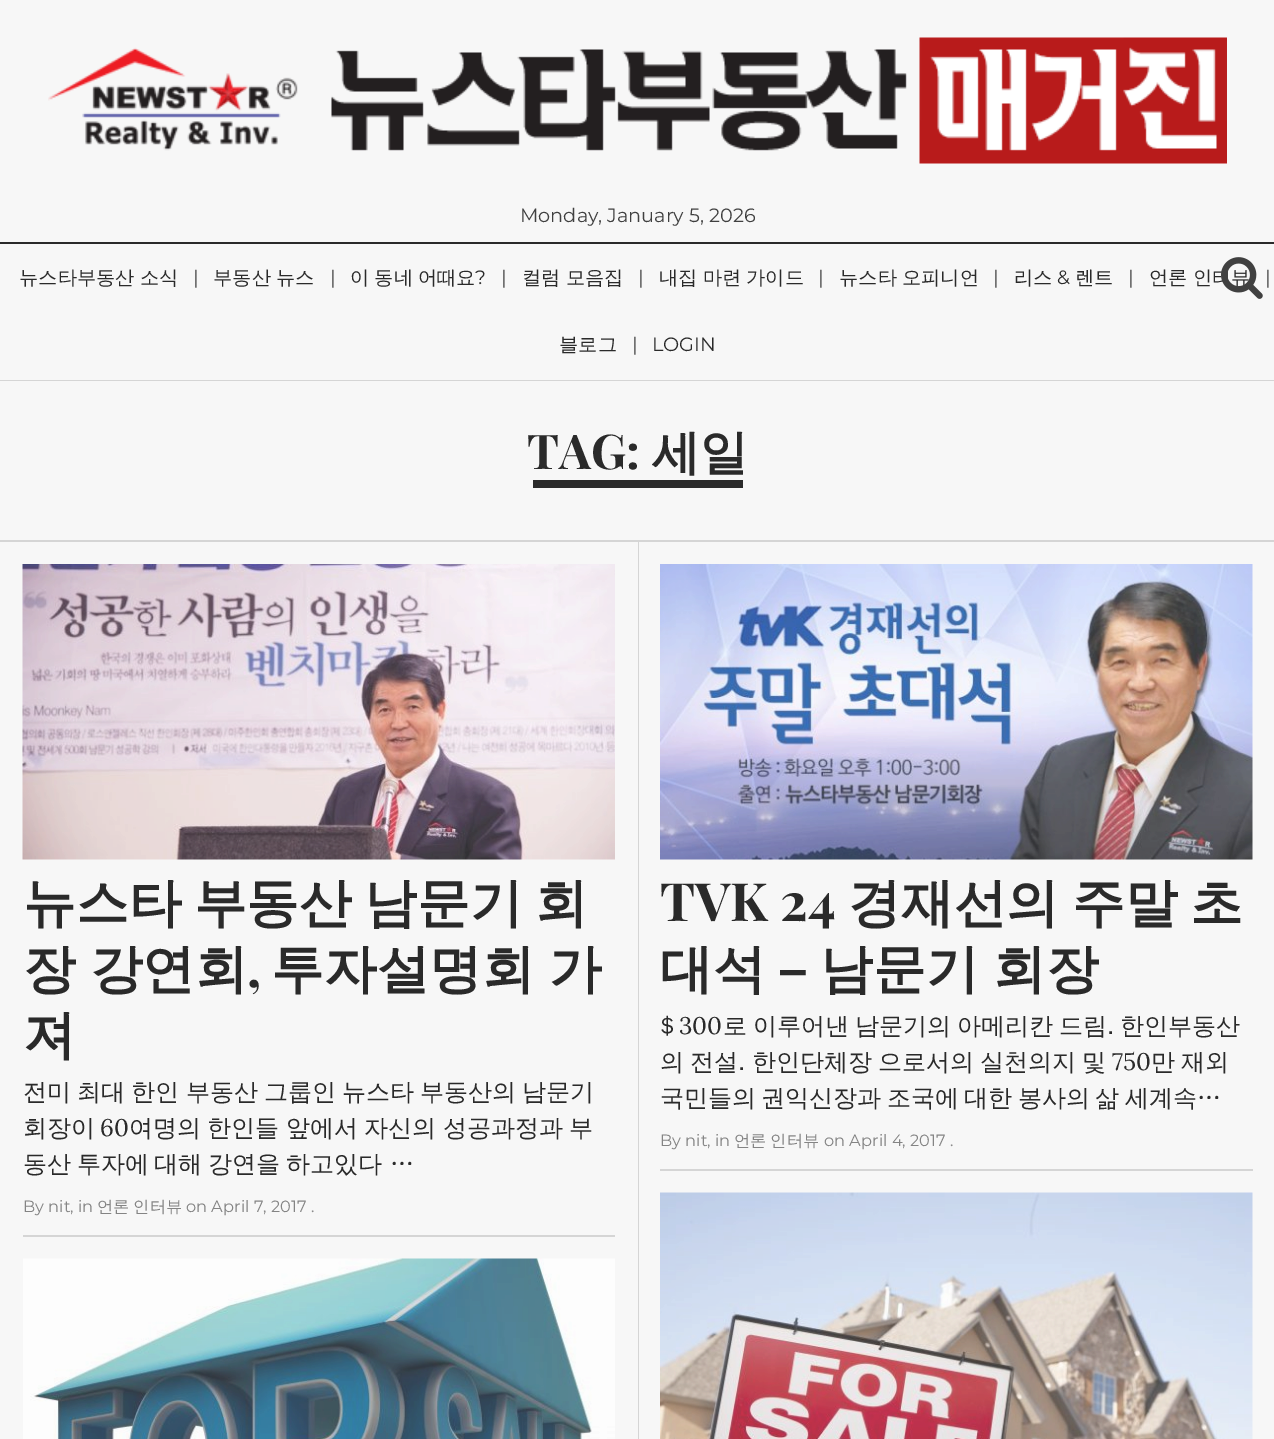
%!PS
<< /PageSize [1274 1439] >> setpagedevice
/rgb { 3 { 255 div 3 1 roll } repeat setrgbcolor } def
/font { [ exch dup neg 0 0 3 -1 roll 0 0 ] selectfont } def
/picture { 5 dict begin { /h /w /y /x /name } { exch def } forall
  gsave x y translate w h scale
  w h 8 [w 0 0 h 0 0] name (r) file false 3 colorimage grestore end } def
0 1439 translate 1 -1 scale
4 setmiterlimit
247 247 247 rgb
0 0 1274 1439 rectfill
(img/1.rgb) 48 37 1179 127 picture
[
  [0 242 1274 2 42 42 42]
  [0 380 1274 1 213 213 213]
  [0 540 1274 2 213 213 213]
  [533 480 210 8 42 42 42]
  [638 542 1 897 213 213 213]
] { aload pop rgb rectfill } forall
(img/3.rgb) 22 564 593 296 picture
23 1235 592 2 rectfill
(img/4.rgb) 660 564 593 296 picture
660 1169 593 2 rectfill
(img/5.rgb) 23 1258 592 181 picture
(img/6.rgb) 660 1192 593 247 picture
/Montserrat-Thin 19.25 font
64 64 64 rgb
520 222 moveto (Monday, January 5, 2026) show
/WenQuanYiZenHei-Medium 19.25 font
42 42 42 rgb
19 284 moveto -0.75 0 32 (뉴스타부동산 소식) widthshow
/Montserrat-Thin 19.25 font
64 64 64 rgb
193 284 moveto (|) show
/WenQuanYiZenHei-Medium 19.25 font
42 42 42 rgb
213 284 moveto -0.75 0 32 (부동산 뉴스) widthshow
/Montserrat-Thin 19.25 font
64 64 64 rgb
330 284 moveto (|) show
/WenQuanYiZenHei-Medium 19.25 font
42 42 42 rgb
350 284 moveto -0.75 0 32 (이 동네 어때요) widthshow
/Montserrat-Thin 19.25 font
475 284 moveto (?) show
64 64 64 rgb
501 284 moveto (|) show
/WenQuanYiZenHei-Medium 19.25 font
42 42 42 rgb
522 284 moveto -0.75 0 32 (컬럼 모음집) widthshow
/Montserrat-Thin 19.25 font
64 64 64 rgb
638 284 moveto (|) show
/WenQuanYiZenHei-Medium 19.25 font
42 42 42 rgb
659 284 moveto -0.75 0 32 (내집 마련 가이드) widthshow
/Montserrat-Thin 19.25 font
64 64 64 rgb
818 284 moveto (|) show
/WenQuanYiZenHei-Medium 19.25 font
42 42 42 rgb
839 284 moveto -0.75 0 32 (뉴스타 오피니언) widthshow
/Montserrat-Thin 19.25 font
64 64 64 rgb
993 284 moveto (|) show
/WenQuanYiZenHei-Medium 19.25 font
42 42 42 rgb
1014 284 moveto (리스) show
/Montserrat-Thin 19.25 font
1057 284 moveto (&) show
/WenQuanYiZenHei-Medium 19.25 font
1075 284 moveto (렌트) show
/Montserrat-Thin 19.25 font
64 64 64 rgb
1128 284 moveto (|) show
/WenQuanYiZenHei-Medium 19.25 font
42 42 42 rgb
1149 284 moveto -0.75 0 32 (언론 인터뷰) widthshow
(img/2.rgb) 1221 257 42 42 picture
/Montserrat-Thin 19.25 font
64 64 64 rgb
1265 284 moveto (|) show
/WenQuanYiZenHei-Medium 19.25 font
42 42 42 rgb
559 351 moveto (블로그) show
/Montserrat-Thin 19.25 font
64 64 64 rgb
632 351 moveto (|) show
42 42 42 rgb
652 351 moveto (LOGIN) show
/PlayfairDisplay-Bold 48 font
527 469 moveto (TAG:) show
/WenQuanYiZenHei-Bold 48 font
652 469 moveto (세일) show
/WenQuanYiZenHei-Bold 52.75 font
23 921 moveto -3.5 0 32 (뉴스타 부동산 남문기 회) widthshow
23 987 moveto -2 0 32 (장 강연회) widthshow
/PlayfairDisplay-Bold 52.75 font
247 987 moveto (,) show
/WenQuanYiZenHei-Bold 52.75 font
271 987 moveto -2 0 32 (투자설명회 가) widthshow
23 1053 moveto (져) show
/WenQuanYiZenHei-Medium 24 font
23 1100 moveto -1 0 32 (전미 최대 한인 부동산 그룹인 뉴스타 부동산의 남문기) widthshow
23 1136 moveto (회장이) show
/Lora-Regular 24 font
100 1136 moveto (60) show
/WenQuanYiZenHei-Medium 24 font
129 1136 moveto -0.75 0 32 (여명의 한인들 앞에서 자신의 성공과정과 부) widthshow
23 1172 moveto -1.5 0 32 (동산 투자에 대해 강연을 하고있다) widthshow
390 1172 moveto (…) show
/Montserrat-Thin 16.25 font
132 132 132 rgb
23 1212 moveto (By nit, in) show
/WenQuanYiZenHei-Medium 16.25 font
97 1212 moveto -1 0 32 (언론 인터뷰) widthshow
/Montserrat-Thin 16.25 font
186 1212 moveto (on April 7, 2017 .) show
/PlayfairDisplay-Bold 52.75 font
42 42 42 rgb
660 921 moveto (TVK 24) show
/WenQuanYiZenHei-Bold 52.75 font
[
  [(경재선의) 848 921]
  [(주말) 1072 921]
  [(초) 1190 921]
  [(대석) 660 987]
] { aload pop moveto show } forall
/PlayfairDisplay-Bold 52.75 font
777 987 moveto (–) show
/WenQuanYiZenHei-Bold 52.75 font
820 987 moveto -1.25 0 32 (남문기 회장) widthshow
/WenQuanYiZenHei-Medium 24 font
660 1034 moveto ($) show
/Lora-Regular 24 font
679 1034 moveto (300) show
/WenQuanYiZenHei-Medium 24 font
723 1034 moveto -1.25 0 32 (로 이루어낸 남문기의 아메리칸 드림. 한인부동산) widthshow
660 1070 moveto -1 0 32 (의 전설. 한인단체장 으로서의 실천의지 및) widthshow
/Lora-Regular 24 font
1112 1070 moveto (750) show
/WenQuanYiZenHei-Medium 24 font
1151 1070 moveto -1 0 32 (만 재외) widthshow
660 1106 moveto -1.75 0 32 (국민들의 권익신장과 조국에 대한 봉사의 삶 세계속…) widthshow
/Montserrat-Thin 16.25 font
132 132 132 rgb
660 1146 moveto (By nit, in) show
/WenQuanYiZenHei-Medium 16.25 font
734 1146 moveto -1 0 32 (언론 인터뷰) widthshow
/Montserrat-Thin 16.25 font
824 1146 moveto (on April 4, 2017 .) show
showpage
